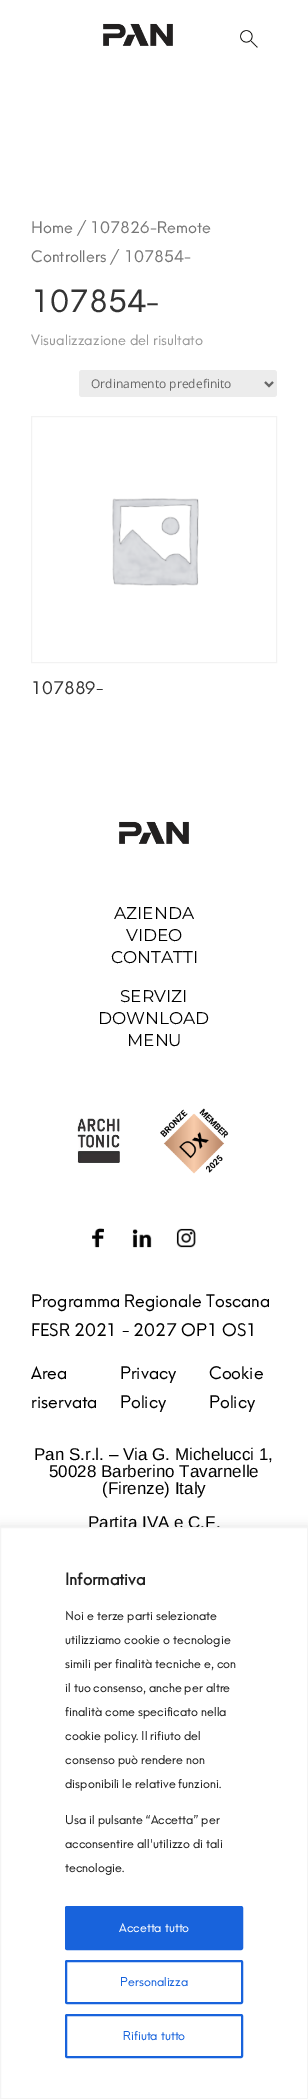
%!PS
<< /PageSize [308 2099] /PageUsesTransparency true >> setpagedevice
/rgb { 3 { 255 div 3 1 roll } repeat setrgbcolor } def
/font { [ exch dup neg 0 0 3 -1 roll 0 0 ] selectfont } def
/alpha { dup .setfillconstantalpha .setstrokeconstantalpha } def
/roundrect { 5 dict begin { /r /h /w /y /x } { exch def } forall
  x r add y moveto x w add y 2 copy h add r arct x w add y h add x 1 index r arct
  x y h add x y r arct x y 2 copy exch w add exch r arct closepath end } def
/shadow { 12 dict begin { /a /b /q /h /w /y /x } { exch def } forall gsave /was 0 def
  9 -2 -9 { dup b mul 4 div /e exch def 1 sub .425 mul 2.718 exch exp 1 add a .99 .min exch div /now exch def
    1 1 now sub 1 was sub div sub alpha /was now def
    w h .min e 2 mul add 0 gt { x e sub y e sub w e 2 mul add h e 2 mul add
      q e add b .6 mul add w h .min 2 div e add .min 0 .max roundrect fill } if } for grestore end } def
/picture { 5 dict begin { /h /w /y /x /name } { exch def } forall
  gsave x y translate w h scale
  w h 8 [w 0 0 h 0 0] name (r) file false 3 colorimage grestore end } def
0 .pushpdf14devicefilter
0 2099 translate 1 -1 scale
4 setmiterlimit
255 255 255 rgb
0 0 308 2099 rectfill
(img/1.rgb) 103 23 70 23 picture
(img/2.rgb) 240 30 18 18 picture
236 236 236 rgb
79 370 198 27 3 roundrect fill
102 102 102 rgb
2 setlinewidth
265 382 moveto 269 386 lineto 273 382 lineto stroke
242 242 242 rgb
1 setlinewidth
31.5 416.5 245 246 rectstroke
(img/3.rgb) 112 498 87 88 picture
(img/4.rgb) 119 821 70 23 picture
(img/5.rgb) 77 1118 43 45 picture
(img/6.rgb) 160 1108 69 66 picture
(img/7.rgb) 92 1228 12 20 picture
(img/8.rgb) 132 1229 20 19 picture
(img/9.rgb) 176 1228 20 20 picture
172 171 171 rgb
0 1526 308 572 0 5 0.3 shadow
/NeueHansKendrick-Regular 15.6 font
118 118 118 rgb
31 233 moveto (Home / 107826-Remote) show
31 262 moveto (Controllers / 107854-) show
/NeueHansKendrick-Regular 30 font
51 51 51 rgb
31 312 moveto (107854-) show
/NeueHansKendrick-Regular 14 font
153 153 153 rgb
31 345 moveto (Visualizzazione del risultato) show
/OpenSans-Regular 12 font
102 102 102 rgb
91 388 moveto (Ordinamento predefinito) show
/NeueHansKendrick-Regular 17 font
51 51 51 rgb
31 694 moveto (107889-) show
/Montserrat-Regular 17 font
0 0 0 rgb
[
  [(AZIENDA) 114 919]
  [(VIDEO) 126 941]
  [(CONTATTI) 111 963]
  [(SERVIZI) 120 1002]
  [(DOWNLOAD) 98 1024]
  [(MENU) 127 1046]
] { aload pop moveto show } forall
/NeueHansKendrick-Regular 17 font
[
  [(Programma Regionale Toscana) 31 1307]
  [(FESR 2021 - 2027 OP1 OS1) 31 1336]
  [(Area) 31 1379]
  [(riservata) 31 1408]
  [(Privacy) 120 1379]
  [(Policy) 120 1408]
  [(Cookie) 209 1379]
  [(Policy) 209 1408]
] { aload pop moveto show } forall
/LiberationSans-Regular 17 font
[
  [(Pan S.r.l. – Via G. Michelucci 1,) 34 1460]
  [(50028 Barberino Tavarnelle) 49 1477]
  [(\(Firenze\) Italy) 102 1494]
  [(Partita IVA e C.F.) 88 1528]
] { aload pop moveto show } forall
255 255 255 rgb
0.5 1527.5 moveto 307.5 1527.5 lineto 307.5 2098.5 lineto 0.5 2098.5 lineto closepath gsave fill grestore
244 244 244 rgb
stroke
/NeueHansKendrick-Bold 16 font
33 33 33 rgb
65 1585 moveto (Informativa) show
/NeueHansKendrick-Regular 12 font
[
  [(Noi e terze parti selezionate) 65 1620]
  [(utilizziamo cookie o tecnologie) 65 1644]
  [(simili per finalità tecniche e, con) 65 1668]
  [(il tuo consenso, anche per altre) 65 1692]
  [(finalità come specificato nella) 65 1716]
  [(cookie policy) 65 1740]
  [(. Il rifiuto del) 136 1740]
  [(consenso può rendere non) 65 1764]
  [(disponibili le relative funzioni.) 65 1788]
  [(Usa il pulsante “Accetta” per) 65 1824]
  [(acconsentire all'utilizzo di tali) 65 1848]
  [(tecnologie.) 65 1872]
] { aload pop moveto show } forall
24 99 220 rgb
66 1907 176 42 1 roundrect gsave fill grestore
2 setlinewidth
stroke
255 255 255 rgb
119 1932 moveto (Accetta tutto) show
24 99 220 rgb
66 1961 176 42 1 roundrect stroke
120 1986 moveto (Personalizza) show
66 2015 176 42 1 roundrect stroke
123 2040 moveto (Rifiuta tutto) show
.poppdf14devicefilter showpage
